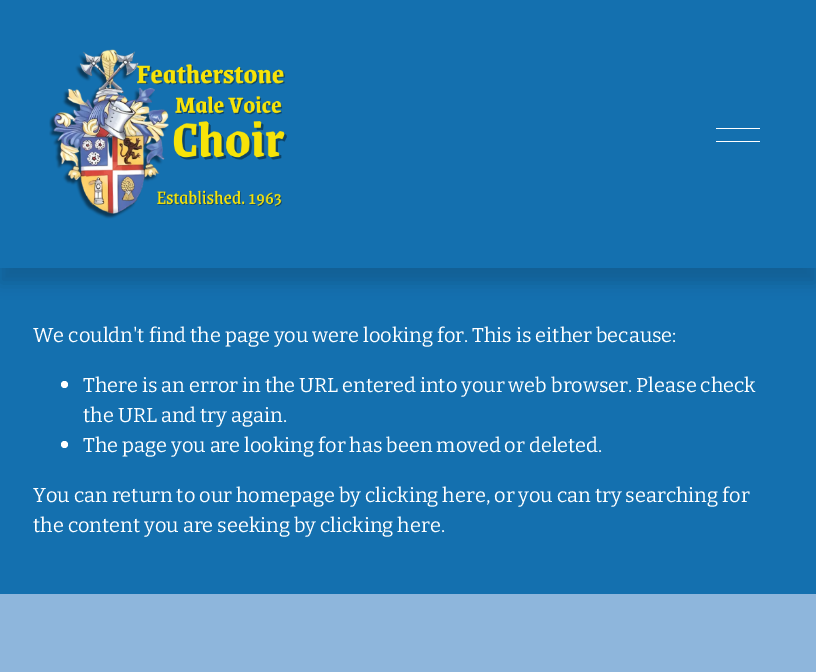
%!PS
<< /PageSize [816 672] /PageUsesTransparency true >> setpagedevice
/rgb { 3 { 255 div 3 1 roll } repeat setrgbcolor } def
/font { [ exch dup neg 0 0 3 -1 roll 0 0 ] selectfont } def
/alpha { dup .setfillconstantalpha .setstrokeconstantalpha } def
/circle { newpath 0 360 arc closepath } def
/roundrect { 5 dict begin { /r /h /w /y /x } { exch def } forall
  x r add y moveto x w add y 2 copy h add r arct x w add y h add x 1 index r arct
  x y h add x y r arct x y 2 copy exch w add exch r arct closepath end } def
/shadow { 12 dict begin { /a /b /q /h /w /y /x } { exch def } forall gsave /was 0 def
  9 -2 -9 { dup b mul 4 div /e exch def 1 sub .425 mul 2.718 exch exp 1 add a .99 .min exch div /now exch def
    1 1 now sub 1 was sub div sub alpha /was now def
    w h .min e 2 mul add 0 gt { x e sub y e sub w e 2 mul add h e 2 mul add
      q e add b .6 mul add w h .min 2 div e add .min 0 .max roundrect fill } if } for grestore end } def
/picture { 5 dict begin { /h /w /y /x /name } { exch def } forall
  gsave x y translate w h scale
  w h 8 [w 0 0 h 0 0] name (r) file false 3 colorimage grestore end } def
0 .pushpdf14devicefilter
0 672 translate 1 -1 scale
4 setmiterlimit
20 112 175 rgb
0 0 816 672 rectfill
gsave
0 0 moveto 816 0 lineto 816 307 lineto 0 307 lineto closepath 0 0 moveto 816 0 lineto 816 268 lineto 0 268 lineto closepath eoclip newpath
17 95 149 rgb
0 15 816 268 0 7.5 1 shadow
grestore
(img/1.rgb) 49 49 238 170 picture
255 255 255 rgb
716 128 44 1 rectfill
716 141 44 1 rectfill
64.5 384.5 3.5 circle fill
64.5 444.5 3.5 circle fill
142 182 220 rgb
0 594 816 78 rectfill
/Bitter-Regular 20 font
255 255 255 rgb
[
  [(We couldn't find the page you were looking for. This is either because:) 33 342]
  [(There is an error in the URL entered into your web browser. Please check) 83 392]
  [(the URL and try again.) 83 422]
  [(The page you are looking for has been moved or deleted.) 83 452]
  [(You can return to our homepage by clicking here, or you can try searching for) 33 502]
  [(the content you are seeking by clicking here.) 33 532]
] { aload pop moveto show } forall
.poppdf14devicefilter showpage
